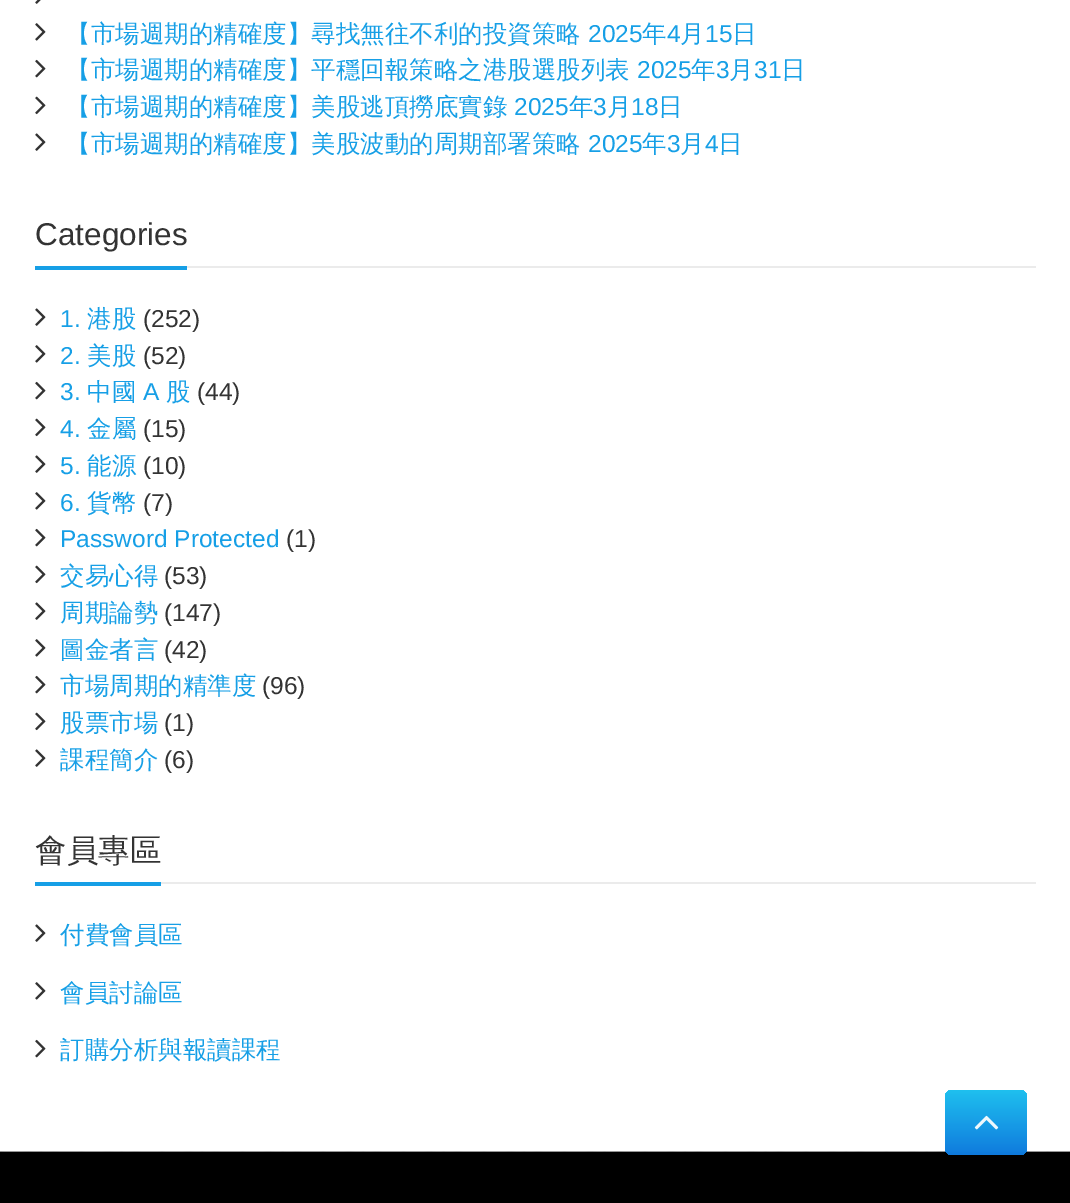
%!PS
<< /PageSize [1070 1203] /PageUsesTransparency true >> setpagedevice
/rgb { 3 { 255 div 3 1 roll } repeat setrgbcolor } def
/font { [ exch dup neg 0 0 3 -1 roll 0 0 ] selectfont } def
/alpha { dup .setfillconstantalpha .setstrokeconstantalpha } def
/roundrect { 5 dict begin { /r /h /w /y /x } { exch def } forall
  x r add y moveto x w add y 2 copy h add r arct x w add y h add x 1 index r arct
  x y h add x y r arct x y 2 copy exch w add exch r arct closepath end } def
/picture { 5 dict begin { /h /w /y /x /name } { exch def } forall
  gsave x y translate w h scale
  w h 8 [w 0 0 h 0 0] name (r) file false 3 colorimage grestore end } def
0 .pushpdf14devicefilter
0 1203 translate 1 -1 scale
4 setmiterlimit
255 255 255 rgb
0 0 1070 1203 rectfill
(img/1.rgb) 35 0 6 4 picture
(img/2.rgb) 35 23 11 18 picture
(img/3.rgb) 35 59 11 19 picture
(img/4.rgb) 35 96 11 19 picture
(img/5.rgb) 35 133 11 18 picture
235 235 235 rgb
187 266 849 2 rectfill
22 159 230 rgb
35 266 152 4 rectfill
(img/5.rgb) 35 308 11 18 picture
(img/6.rgb) 35 345 11 18 picture
(img/3.rgb) 35 381 11 19 picture
(img/4.rgb) 35 418 11 19 picture
(img/7.rgb) 35 455 11 18 picture
(img/8.rgb) 35 492 11 18 picture
(img/3.rgb) 35 528 11 19 picture
(img/4.rgb) 35 565 11 19 picture
(img/5.rgb) 35 602 11 18 picture
(img/6.rgb) 35 639 11 18 picture
(img/3.rgb) 35 675 11 19 picture
(img/4.rgb) 35 712 11 19 picture
(img/5.rgb) 35 749 11 18 picture
235 235 235 rgb
161 882 875 2 rectfill
22 159 230 rgb
35 882 126 4 rectfill
(img/5.rgb) 35 924 11 18 picture
(img/6.rgb) 35 982 11 18 picture
(img/3.rgb) 35 1039 11 19 picture
(img/9.rgb) 0 1151 1070 1 picture
0 0 0 rgb
0 1152 1070 51 rectfill
0.07 alpha
945 1148 moveto 945 1160 954 1157 963 1157 curveto 1009 1157 lineto 1014 1157 1027 1159 1027 1150 curveto 1026 1153 1023 1155 1020 1155 curveto 952 1155 lineto 948 1155 945 1152 945 1148 curveto closepath fill
0.93 alpha
14 122 221 rgb
945 1090 82 65 7 roundrect fill
gsave 945 1090 82 65 7 roundrect clip newpath
<< /ShadingType 2 /ColorSpace /DeviceRGB /Coords [986 1090 986 1155] /Extend [true true] /Function << /FunctionType 2 /Domain [0 1] /C0 [0.122 0.769 0.941] /C1 [0.055 0.478 0.867] /N 1 >> >> shfill grestore
1 alpha
(img/10.rgb) 974 1115 25 15 picture
/WenQuanYiZenHei-Medium 24.5 font
22 159 230 rgb
66 42 moveto (【市場週期的精確度】尋找無往不利的投資策略) show
/LiberationSans-Regular 24.5 font
588 42 moveto (2025) show
/WenQuanYiZenHei-Medium 24.5 font
642 42 moveto (年) show
/LiberationSans-Regular 24.5 font
667 42 moveto (4) show
/WenQuanYiZenHei-Medium 24.5 font
680 42 moveto (月) show
/LiberationSans-Regular 24.5 font
705 42 moveto (15) show
/WenQuanYiZenHei-Medium 24.5 font
732 42 moveto (日) show
66 78 moveto (【市場週期的精確度】平穩回報策略之港股選股列表) show
/LiberationSans-Regular 24.5 font
637 78 moveto (2025) show
/WenQuanYiZenHei-Medium 24.5 font
691 78 moveto (年) show
/LiberationSans-Regular 24.5 font
716 78 moveto (3) show
/WenQuanYiZenHei-Medium 24.5 font
729 78 moveto (月) show
/LiberationSans-Regular 24.5 font
754 78 moveto (31) show
/WenQuanYiZenHei-Medium 24.5 font
781 78 moveto (日) show
66 115 moveto (【市場週期的精確度】美股逃頂撈底實錄) show
/LiberationSans-Regular 24.5 font
514 115 moveto (2025) show
/WenQuanYiZenHei-Medium 24.5 font
569 115 moveto (年) show
/LiberationSans-Regular 24.5 font
593 115 moveto (3) show
/WenQuanYiZenHei-Medium 24.5 font
607 115 moveto (月) show
/LiberationSans-Regular 24.5 font
631 115 moveto (18) show
/WenQuanYiZenHei-Medium 24.5 font
658 115 moveto (日) show
66 152 moveto (【市場週期的精確度】美股波動的周期部署策略) show
/LiberationSans-Regular 24.5 font
588 152 moveto (2025) show
/WenQuanYiZenHei-Medium 24.5 font
642 152 moveto (年) show
/LiberationSans-Regular 24.5 font
667 152 moveto (3) show
/WenQuanYiZenHei-Medium 24.5 font
680 152 moveto (月) show
/LiberationSans-Regular 24.5 font
705 152 moveto (4) show
/WenQuanYiZenHei-Medium 24.5 font
718 152 moveto (日) show
/LiberationSans-Regular 31.5 font
51 51 51 rgb
35 245 moveto (Categories) show
/LiberationSans-Regular 24.5 font
22 159 230 rgb
60 327 moveto (1.) show
/WenQuanYiZenHei-Medium 24.5 font
87 327 moveto (港股) show
/LiberationSans-Regular 24.5 font
51 51 51 rgb
143 327 moveto (\(252\)) show
22 159 230 rgb
60 364 moveto (2.) show
/WenQuanYiZenHei-Medium 24.5 font
87 364 moveto (美股) show
/LiberationSans-Regular 24.5 font
51 51 51 rgb
143 364 moveto (\(52\)) show
22 159 230 rgb
60 400 moveto (3.) show
/WenQuanYiZenHei-Medium 24.5 font
87 400 moveto (中國) show
/LiberationSans-Regular 24.5 font
143 400 moveto (A) show
/WenQuanYiZenHei-Medium 24.5 font
166 400 moveto (股) show
/LiberationSans-Regular 24.5 font
51 51 51 rgb
197 400 moveto (\(44\)) show
22 159 230 rgb
60 437 moveto (4.) show
/WenQuanYiZenHei-Medium 24.5 font
87 437 moveto (金屬) show
/LiberationSans-Regular 24.5 font
51 51 51 rgb
143 437 moveto (\(15\)) show
22 159 230 rgb
60 474 moveto (5.) show
/WenQuanYiZenHei-Medium 24.5 font
87 474 moveto (能源) show
/LiberationSans-Regular 24.5 font
51 51 51 rgb
143 474 moveto (\(10\)) show
22 159 230 rgb
60 511 moveto (6.) show
/WenQuanYiZenHei-Medium 24.5 font
87 511 moveto (貨幣) show
/LiberationSans-Regular 24.5 font
51 51 51 rgb
143 511 moveto (\(7\)) show
22 159 230 rgb
60 547 moveto (Password Protected) show
51 51 51 rgb
286 547 moveto (\(1\)) show
/WenQuanYiZenHei-Medium 24.5 font
22 159 230 rgb
60 584 moveto (交易心得) show
/LiberationSans-Regular 24.5 font
51 51 51 rgb
164 584 moveto (\(53\)) show
/WenQuanYiZenHei-Medium 24.5 font
22 159 230 rgb
60 621 moveto (周期論勢) show
/LiberationSans-Regular 24.5 font
51 51 51 rgb
164 621 moveto (\(147\)) show
/WenQuanYiZenHei-Medium 24.5 font
22 159 230 rgb
60 658 moveto (圖金者言) show
/LiberationSans-Regular 24.5 font
51 51 51 rgb
164 658 moveto (\(42\)) show
/WenQuanYiZenHei-Medium 24.5 font
22 159 230 rgb
60 694 moveto (市場周期的精準度) show
/LiberationSans-Regular 24.5 font
51 51 51 rgb
262 694 moveto (\(96\)) show
/WenQuanYiZenHei-Medium 24.5 font
22 159 230 rgb
60 731 moveto (股票市場) show
/LiberationSans-Regular 24.5 font
51 51 51 rgb
164 731 moveto (\(1\)) show
/WenQuanYiZenHei-Medium 24.5 font
22 159 230 rgb
60 768 moveto (課程簡介) show
/LiberationSans-Regular 24.5 font
51 51 51 rgb
164 768 moveto (\(6\)) show
/WenQuanYiZenHei-Medium 31.5 font
35 861 moveto (會員專區) show
/WenQuanYiZenHei-Medium 24.5 font
22 159 230 rgb
[
  [(付費會員區) 60 943]
  [(會員討論區) 60 1001]
  [(訂購分析與報讀課程) 60 1058]
] { aload pop moveto show } forall
.poppdf14devicefilter showpage
